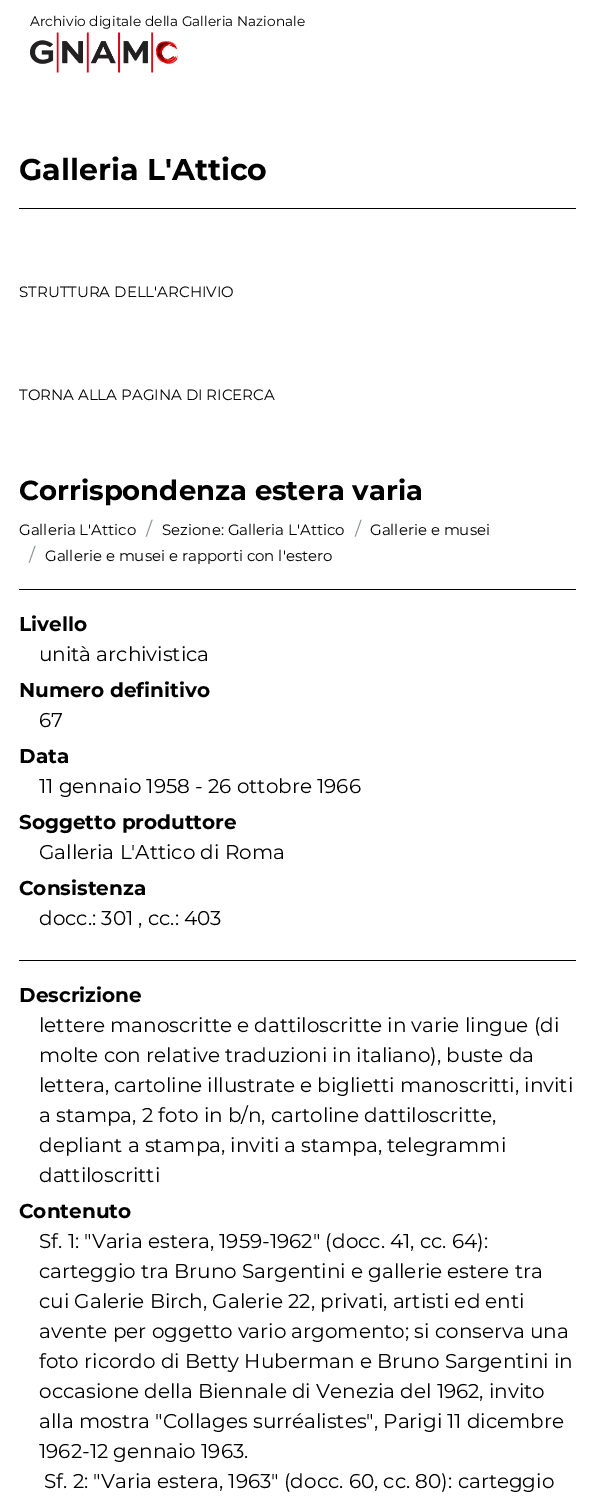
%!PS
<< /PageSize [594 1510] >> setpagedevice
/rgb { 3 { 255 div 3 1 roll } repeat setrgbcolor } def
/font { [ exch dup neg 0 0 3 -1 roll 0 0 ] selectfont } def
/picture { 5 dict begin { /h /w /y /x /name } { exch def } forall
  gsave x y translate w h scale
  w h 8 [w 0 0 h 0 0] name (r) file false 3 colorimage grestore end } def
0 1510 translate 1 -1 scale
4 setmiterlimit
255 255 255 rgb
0 0 594 1510 rectfill
(img/1.rgb) 30 32 149 41 picture
[
  [19 208 557 1 0 0 0]
  [19 589 557 1 0 0 0]
  [19 960 557 1 0 0 0]
] { aload pop rgb rectfill } forall
/Montserrat-Regular 13.75 font
30 26 moveto (Archivio digitale della Galleria Nazionale) show
/Montserrat-Bold 30 font
19 180 moveto (Galleria L'Attico) show
/Montserrat-Regular 15 font
19 297 moveto (STRUTTURA DELL'ARCHIVIO) show
19 400 moveto (TORNA ALLA PAGINA DI RICERCA) show
/Montserrat-Bold 27.5 font
19 500 moveto (Corrispondenza estera varia) show
/Montserrat-Regular 15 font
19 535 moveto (Galleria L'Attico) show
/Montserrat-Regular 18 font
134 142 150 rgb
146 535 moveto (/) show
/Montserrat-Regular 15 font
0 0 0 rgb
162 535 moveto (Sezione: Galleria L'Attico) show
/Montserrat-Regular 18 font
134 142 150 rgb
355 535 moveto (/) show
/Montserrat-Regular 15 font
0 0 0 rgb
370 535 moveto (Gallerie e musei) show
/Montserrat-Regular 18 font
134 142 150 rgb
29 561 moveto (/) show
/Montserrat-Regular 15 font
0 0 0 rgb
45 561 moveto (Gallerie e musei e rapporti con l'estero) show
/Montserrat-Bold 20 font
19 631 moveto (Livello) show
/Montserrat-Regular 20 font
39 661 moveto (unità archivistica) show
/Montserrat-Bold 20 font
19 697 moveto (Numero definitivo) show
/Montserrat-Regular 20 font
39 727 moveto (67) show
/Montserrat-Bold 20 font
19 763 moveto (Data) show
/Montserrat-Regular 20 font
39 793 moveto (11 gennaio 1958 - 26 ottobre 1966) show
/Montserrat-Bold 20 font
19 829 moveto (Soggetto produttore) show
/Montserrat-Regular 20 font
39 859 moveto (Galleria L'Attico di Roma) show
/Montserrat-Bold 20 font
19 895 moveto (Consistenza) show
/Montserrat-Regular 20 font
39 925 moveto (docc.: 301 , cc.: 403) show
/Montserrat-Bold 20 font
19 1002 moveto (Descrizione) show
/Montserrat-Regular 20 font
[
  [(lettere manoscritte e dattiloscritte in varie lingue \(di) 39 1032]
  [(molte con relative traduzioni in italiano\), buste da) 39 1062]
  [(lettera, cartoline illustrate e biglietti manoscritti, inviti) 39 1092]
  [(a stampa, 2 foto in b/n, cartoline dattiloscritte,) 39 1122]
  [(depliant a stampa, inviti a stampa, telegrammi) 39 1152]
  [(dattiloscritti) 39 1182]
] { aload pop moveto show } forall
/Montserrat-Bold 20 font
19 1218 moveto (Contenuto) show
/Montserrat-Regular 20 font
[
  [(Sf. 1: "Varia estera, 1959-1962" \(docc. 41, cc. 64\):) 39 1248]
  [(carteggio tra Bruno Sargentini e gallerie estere tra) 39 1278]
  [(cui Galerie Birch, Galerie 22, privati, artisti ed enti) 39 1308]
  [(avente per oggetto vario argomento; si conserva una) 39 1338]
  [(foto ricordo di Betty Huberman e Bruno Sargentini in) 39 1368]
  [(occasione della Biennale di Venezia del 1962, invito) 39 1398]
  [(alla mostra "Collages surréalistes", Parigi 11 dicembre) 39 1428]
  [(1962-12 gennaio 1963.) 39 1458]
  [(Sf. 2: "Varia estera, 1963" \(docc. 60, cc. 80\): carteggio) 44 1488]
] { aload pop moveto show } forall
showpage
